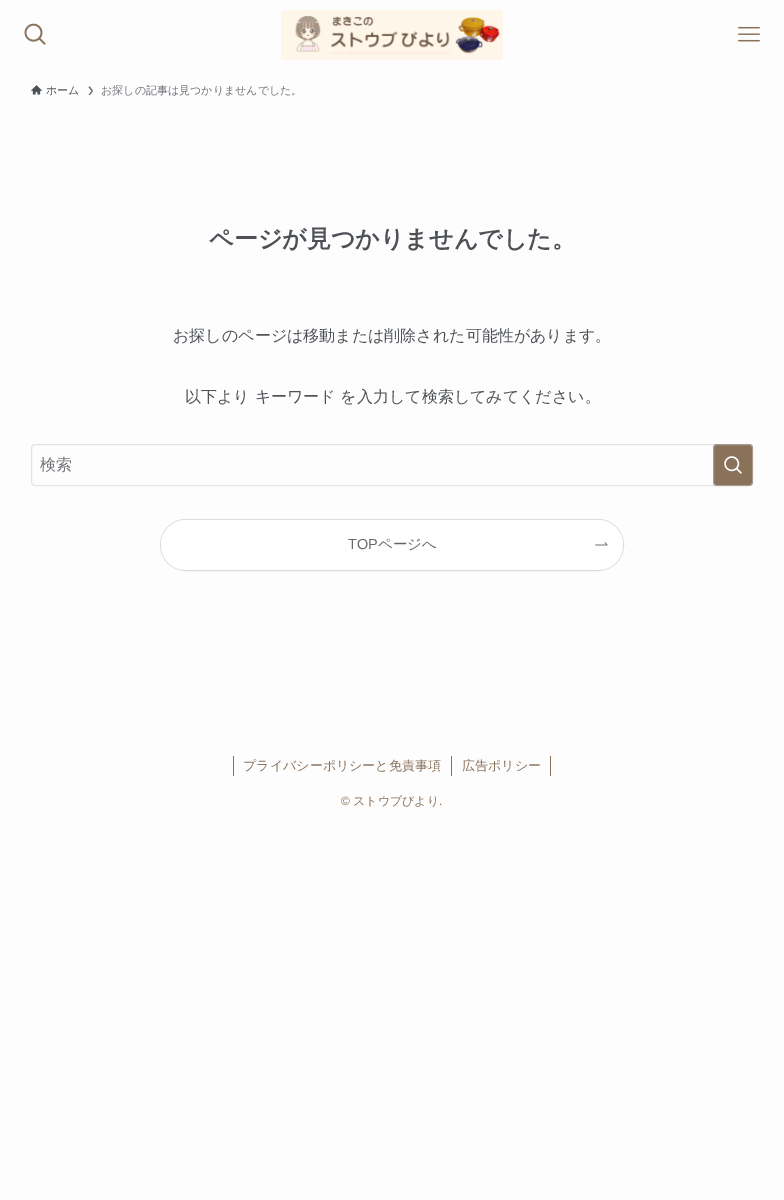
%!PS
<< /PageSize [784 1200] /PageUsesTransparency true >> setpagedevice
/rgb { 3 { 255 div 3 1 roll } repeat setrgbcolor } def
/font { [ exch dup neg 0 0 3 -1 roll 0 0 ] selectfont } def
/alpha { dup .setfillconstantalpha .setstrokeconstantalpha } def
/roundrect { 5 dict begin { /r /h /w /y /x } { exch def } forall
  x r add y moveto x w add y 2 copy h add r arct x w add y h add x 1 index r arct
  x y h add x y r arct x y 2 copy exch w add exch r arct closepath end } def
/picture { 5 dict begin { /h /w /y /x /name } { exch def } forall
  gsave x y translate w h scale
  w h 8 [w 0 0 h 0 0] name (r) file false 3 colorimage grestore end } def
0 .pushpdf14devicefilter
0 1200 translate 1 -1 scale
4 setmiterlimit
253 253 253 rgb
0 0 784 1200 rectfill
(img/1.rgb) 24 23 22 22 picture
(img/2.rgb) 281 10 222 50 picture
(img/3.rgb) 738 26 22 16 picture
(img/4.rgb) 31 85 11 10 picture
112 115 119 rgb
90 86.5 moveto 88.5 87 lineto 91.5 91 lineto 88.5 95 lineto 90 95 lineto 93 91 lineto closepath fill
227 227 227 rgb
31.5 444.5 721 41 3.5 roundrect stroke
138 113 90 rgb
713 444 40 42 4 roundrect fill
0.5 alpha
199 199 199 rgb
713.5 444.5 39 41 3.5 roundrect stroke
1 alpha
(img/5.rgb) 724 456 18 18 picture
220 220 220 rgb
160.5 519.5 463 51 25.5 roundrect stroke
255 255 255 rgb
161 520 462 50 25 roundrect fill
(img/6.rgb) 595 542 13 4 picture
[
  [451 756 1 20 138 113 90]
  [233 756 1 20 138 113 90]
  [550 756 1 20 138 113 90]
] { aload pop rgb rectfill } forall
/WenQuanYiZenHei-Medium 11 font
77 81 86 rgb
46 94 moveto (ホーム) show
112 115 119 rgb
101 94 moveto (お探しの記事は見つかりませんでした。) show
/WenQuanYiZenHei-Bold 24 font
77 81 86 rgb
209 247 moveto (ページが見つかりませんでした。) show
/WenQuanYiZenHei-Medium 16 font
173 341 moveto (お探しのページは移動または削除された可能性があります。) show
185 402 moveto (以下より キーワード を入力して検索してみてください。) show
112 115 119 rgb
40 470 moveto (検索) show
/LiberationSans-Regular 14.5 font
102 102 102 rgb
348 549 moveto (TOP) show
/WenQuanYiZenHei-Medium 14.5 font
378 549 moveto (ページへ) show
/WenQuanYiZenHei-Medium 13 font
138 113 90 rgb
243 770 moveto (プライバシーポリシーと免責事項) show
462 770 moveto (広告ポリシー) show
/LiberationSans-Regular 12 font
341 805 moveto (©) show
/WenQuanYiZenHei-Medium 12 font
353 805 moveto (ストウブびより) show
/LiberationSans-Regular 12 font
439 805 moveto (.) show
.poppdf14devicefilter showpage
